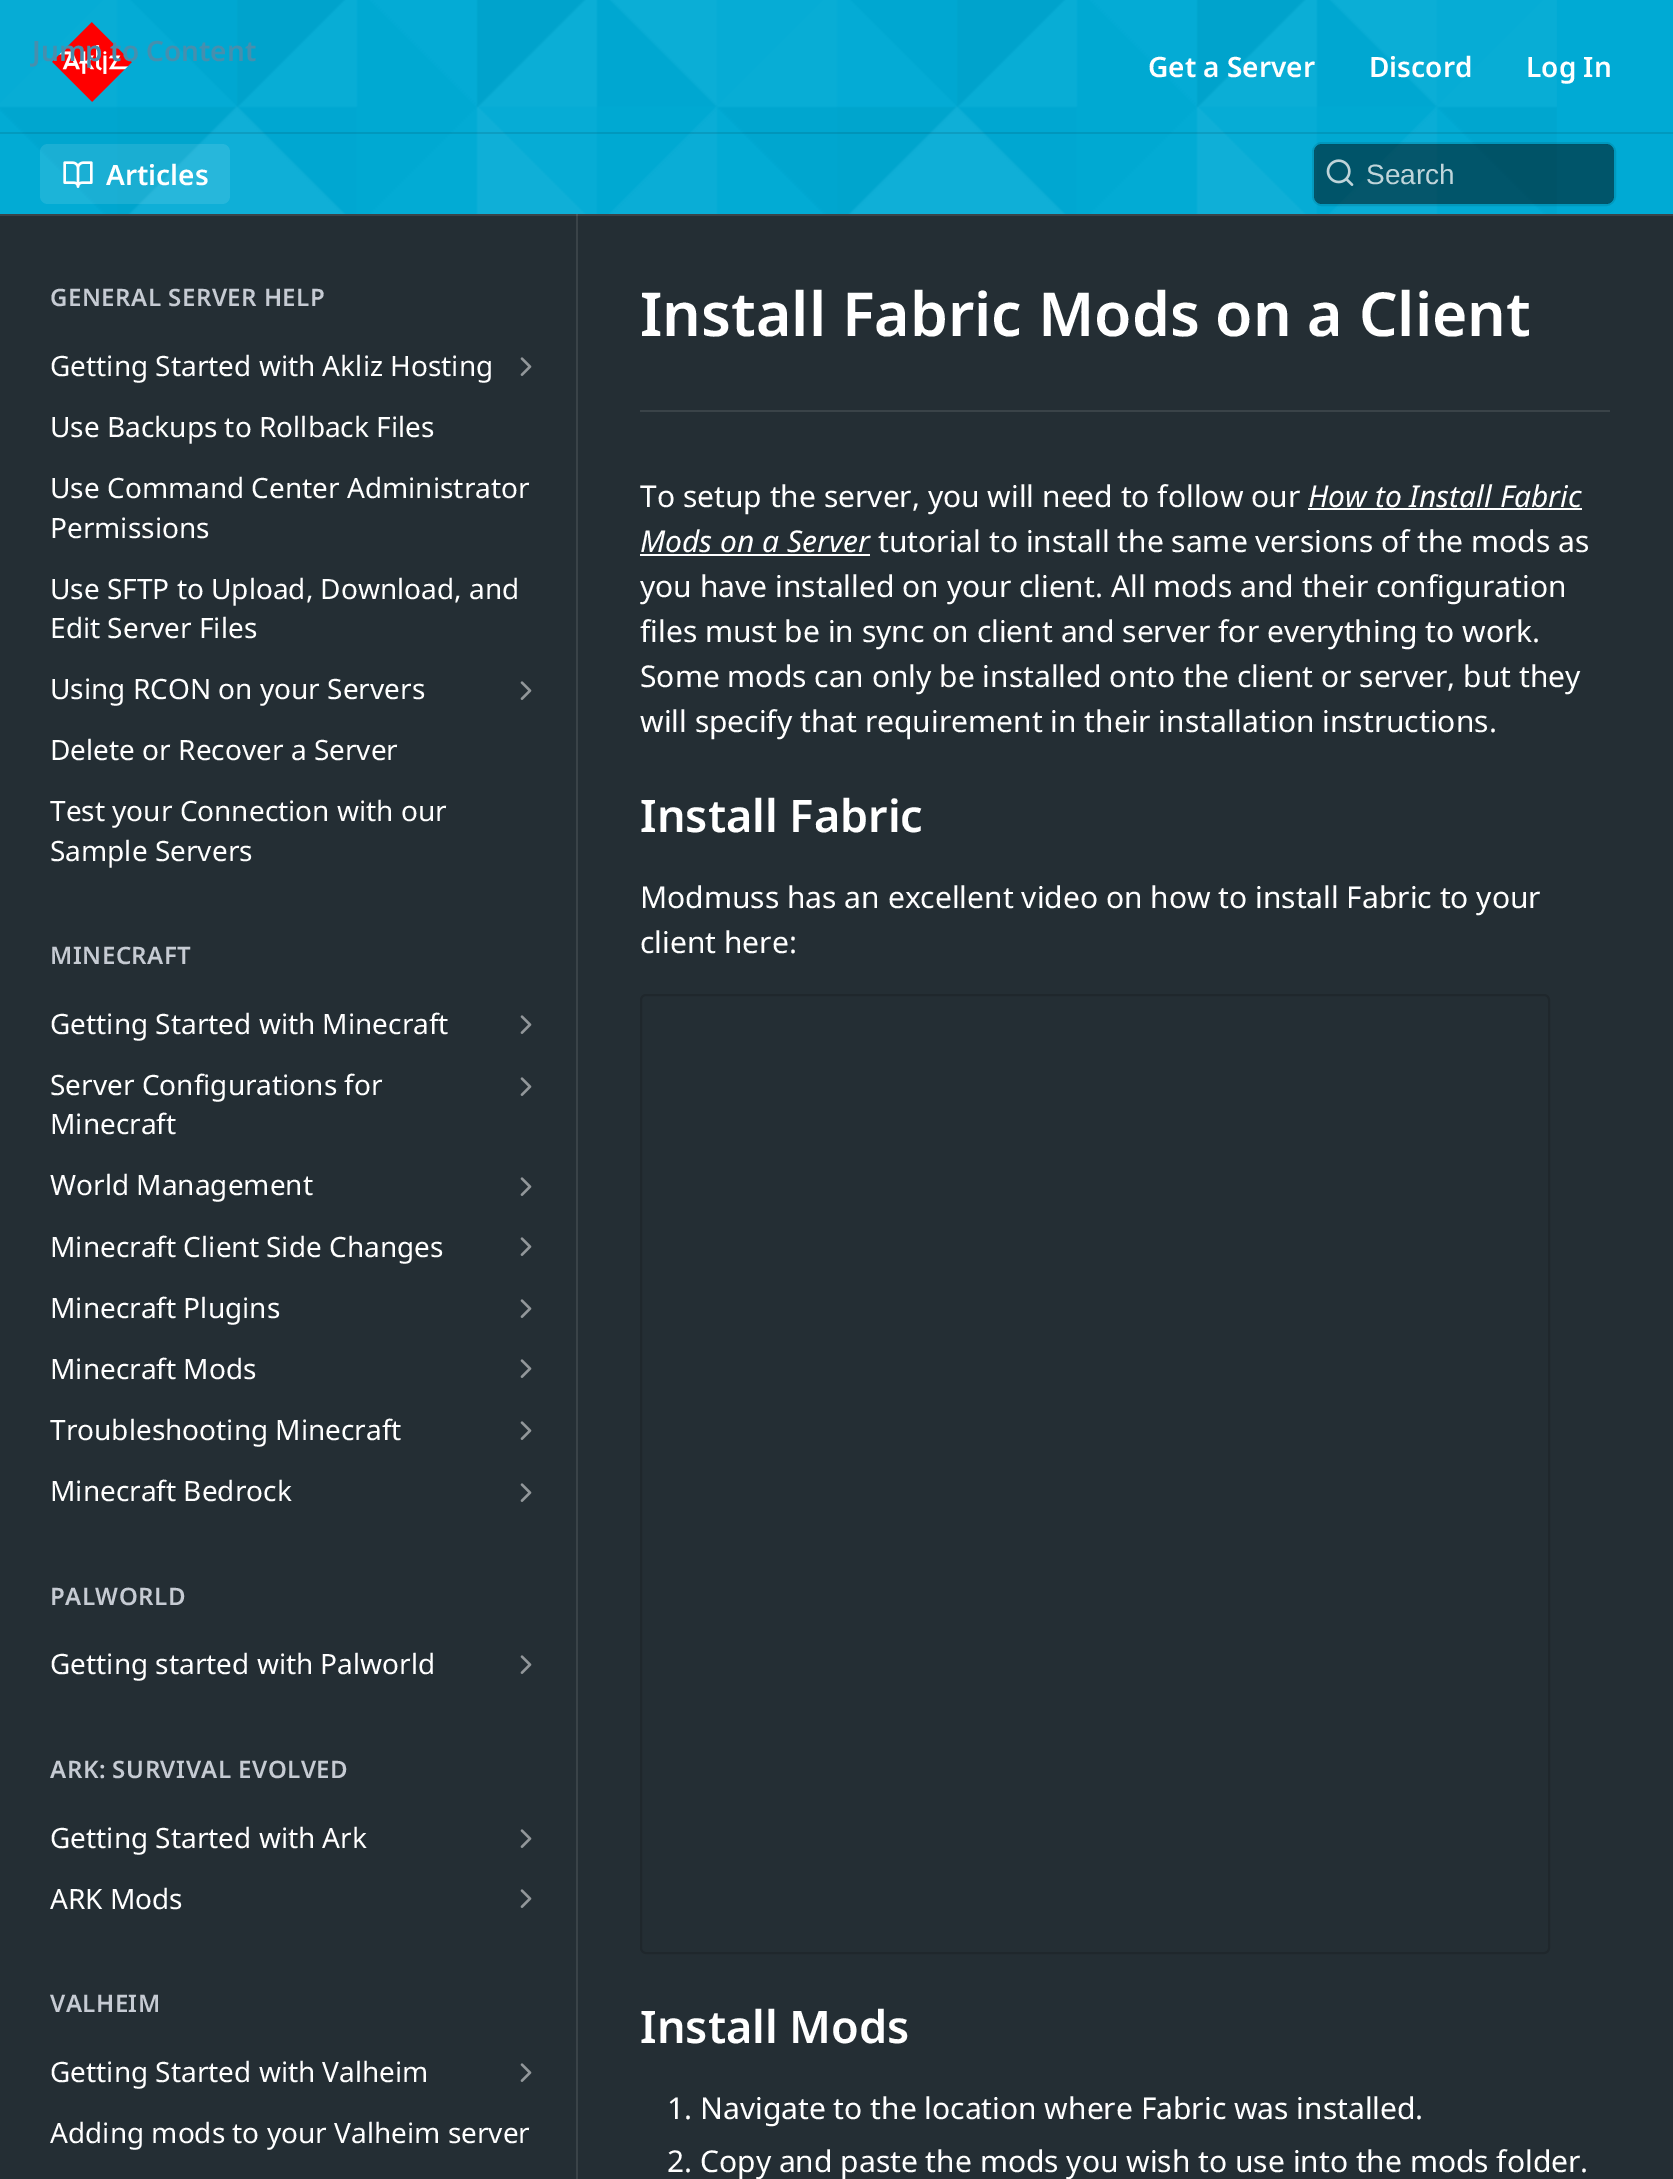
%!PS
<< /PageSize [1673 2179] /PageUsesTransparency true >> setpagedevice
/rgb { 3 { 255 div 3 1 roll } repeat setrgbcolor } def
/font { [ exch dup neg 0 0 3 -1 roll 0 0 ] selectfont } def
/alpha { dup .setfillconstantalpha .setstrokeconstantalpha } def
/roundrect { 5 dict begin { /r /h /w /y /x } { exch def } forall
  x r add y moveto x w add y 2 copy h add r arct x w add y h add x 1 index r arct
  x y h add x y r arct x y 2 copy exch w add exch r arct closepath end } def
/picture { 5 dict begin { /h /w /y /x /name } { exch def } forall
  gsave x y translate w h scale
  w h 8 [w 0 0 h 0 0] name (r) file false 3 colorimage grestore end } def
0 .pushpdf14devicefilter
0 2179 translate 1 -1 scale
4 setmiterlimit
36 46 52 rgb
0 0 1673 2179 rectfill
58 67 72 rgb
0 214 1673 2 rectfill
0 170 212 rgb
0 0 1673 214 rectfill
(img/1.rgb) 0 0 1557 214 picture
0.1 alpha
0 0 0 rgb
0 132 1673 2 rectfill
1 alpha
(img/2.rgb) 52 22 80 80 picture
0.1 alpha
255 255 255 rgb
40 144 190 60 8 roundrect fill
1 alpha
(img/3.rgb) 63 161 30 27 picture
0.1 alpha
0 0 0 rgb
2 setlinewidth
1313 143 302 62 9 roundrect stroke
0.5 alpha
1314 144 300 60 8 roundrect fill
1 alpha
(img/4.rgb) 1326 159 28 27 picture
58 67 72 rgb
576 214 2 1965 rectfill
78 86 90 rgb
576 214 2 2 rectfill
(img/5.rgb) 520 357 12 19 picture
(img/5.rgb) 520 681 12 19 picture
(img/5.rgb) 520 1015 12 19 picture
(img/5.rgb) 520 1077 12 19 picture
(img/5.rgb) 520 1177 12 19 picture
(img/5.rgb) 520 1237 12 19 picture
(img/5.rgb) 520 1299 12 19 picture
(img/5.rgb) 520 1359 12 19 picture
(img/5.rgb) 520 1421 12 19 picture
(img/5.rgb) 520 1483 12 19 picture
(img/5.rgb) 520 1655 12 19 picture
(img/5.rgb) 520 1829 12 19 picture
(img/5.rgb) 520 1889 12 19 picture
(img/5.rgb) 520 2063 12 19 picture
[
  [640 410 970 2 58 67 72]
  [1308 508 274 2 255 255 255]
  [640 554 230 2 255 255 255]
] { aload pop rgb rectfill } forall
31 39 44 rgb
641 995 908 958 5 roundrect stroke
/NotoSans-SemiBold 28 font
70 143 174 rgb
32 61 moveto (Jump to Content) show
255 255 255 rgb
[
  [(Get a Server) 1148 77]
  [(Discord) 1369 77]
  [(Log In) 1526 77]
  [(Articles) 106 185]
] { aload pop moveto show } forall
/LiberationSans-Regular 28 font
192 213 218 rgb
1366 184 moveto (Search) show
/NotoSans-SemiBold 24 font
198 203 211 rgb
50 306 moveto 0.5 0 (GENERAL SERVER HELP) ashow
/NotoSans-Regular 28 font
255 255 255 rgb
[
  [(Getting Started with Akliz Hosting) 50 376]
  [(Use Backups to Rollback Files) 50 437]
  [(Use Command Center Administrator) 50 498]
  [(Permissions) 50 538]
  [(Use SFTP to Upload, Download, and) 50 599]
  [(Edit Server Files) 50 638]
  [(Using RCON on your Servers) 50 699]
  [(Delete or Recover a Server) 50 760]
  [(Test your Connection with our) 50 821]
  [(Sample Servers) 50 861]
] { aload pop moveto show } forall
/NotoSans-SemiBold 24 font
198 203 211 rgb
50 964 moveto 0.5 0 (MINECRAFT) ashow
/NotoSans-Regular 28 font
255 255 255 rgb
[
  [(Getting Started with Minecraft) 50 1034]
  [(Server Configurations for) 50 1095]
  [(Minecraft) 50 1134]
  [(World Management) 50 1195]
  [(Minecraft Client Side Changes) 50 1257]
  [(Minecraft Plugins) 50 1318]
  [(Minecraft Mods) 50 1379]
  [(Troubleshooting Minecraft) 50 1440]
  [(Minecraft Bedrock) 50 1501]
] { aload pop moveto show } forall
/NotoSans-SemiBold 24 font
198 203 211 rgb
50 1605 moveto 0.5 0 (PALWORLD) ashow
/NotoSans-Regular 28 font
255 255 255 rgb
50 1674 moveto (Getting started with Palworld) show
/NotoSans-SemiBold 24 font
198 203 211 rgb
50 1778 moveto 0.5 0 (ARK: SURVIVAL EVOLVED) ashow
/NotoSans-Regular 28 font
255 255 255 rgb
50 1848 moveto (Getting Started with Ark) show
50 1909 moveto (ARK Mods) show
/NotoSans-SemiBold 24 font
198 203 211 rgb
50 2012 moveto 0.5 0 (VALHEIM) ashow
/NotoSans-Regular 28 font
255 255 255 rgb
50 2082 moveto (Getting Started with Valheim) show
50 2143 moveto (Adding mods to your Valheim server) show
/NotoSans-SemiBold 60.75 font
640 336 moveto (Install Fabric Mods on a Client) show
/NotoSans-Regular 30 font
640 507 moveto (To setup the server, you will need to follow our) show
/NotoSans-Italic 30 font
1308 507 moveto (How to Install Fabric) show
640 552 moveto (Mods on a Server) show
/NotoSans-Regular 30 font
[
  [(tutorial to install the same versions of the mods as) 878 552]
  [(you have installed on your client. All mods and their configuration) 640 597]
  [(files must be in sync on client and server for everything to work.) 640 642]
  [(Some mods can only be installed onto the client or server, but they) 640 687]
  [(will specify that requirement in their installation instructions.) 640 732]
] { aload pop moveto show } forall
/NotoSans-SemiBold 45 font
640 832 moveto (Install Fabric) show
/NotoSans-Regular 30 font
640 908 moveto (Modmuss has an excellent video on how to install Fabric to your) show
640 953 moveto (client here:) show
/NotoSans-SemiBold 45 font
640 2043 moveto (Install Mods) show
/NotoSans-Regular 30 font
667 2119 moveto (1. Navigate to the location where Fabric was installed.) show
667 2172 moveto (2. Copy and paste the mods you wish to use into the mods folder.) show
.poppdf14devicefilter showpage
